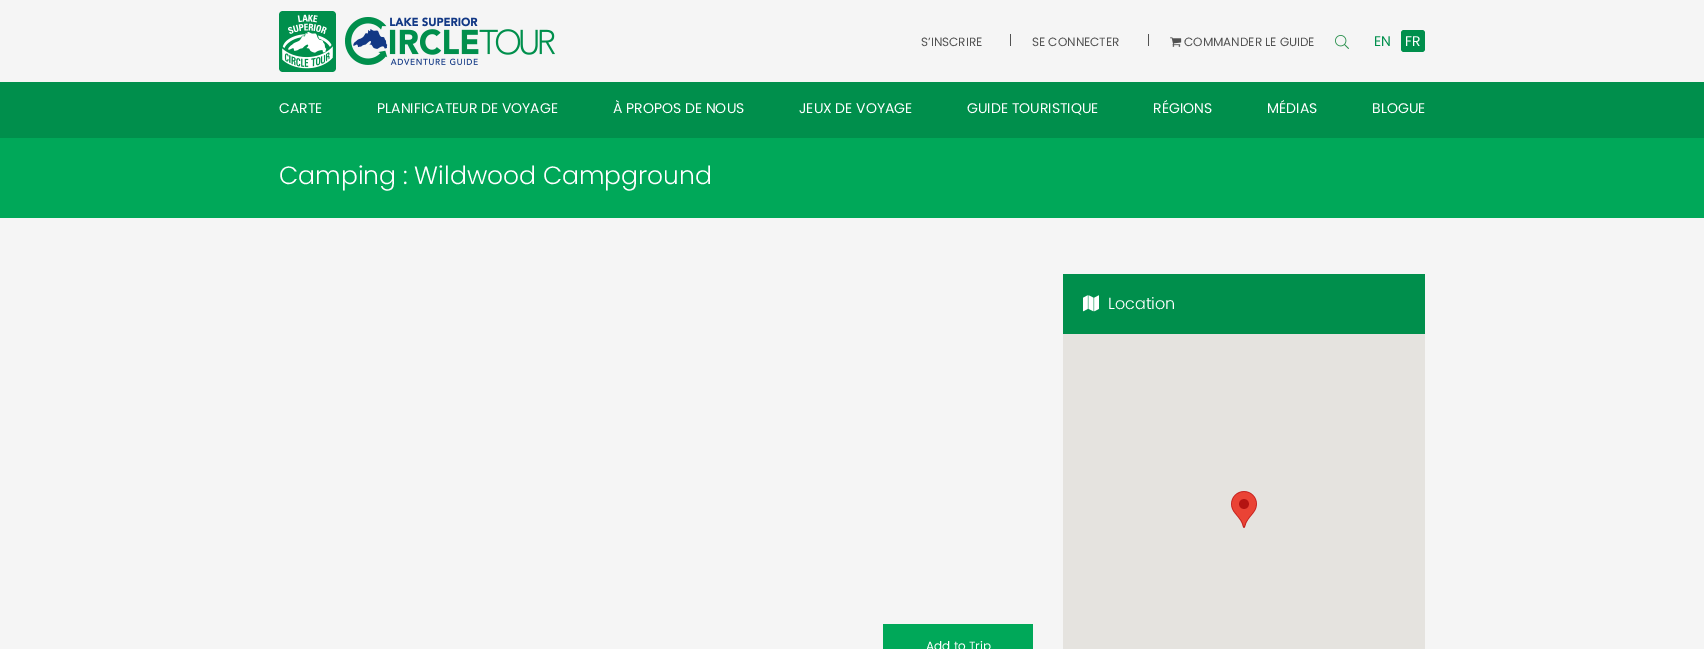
%!PS
<< /PageSize [1704 649] >> setpagedevice
/rgb { 3 { 255 div 3 1 roll } repeat setrgbcolor } def
/font { [ exch dup neg 0 0 3 -1 roll 0 0 ] selectfont } def
/roundrect { 5 dict begin { /r /h /w /y /x } { exch def } forall
  x r add y moveto x w add y 2 copy h add r arct x w add y h add x 1 index r arct
  x y h add x y r arct x y 2 copy exch w add exch r arct closepath end } def
/picture { 5 dict begin { /h /w /y /x /name } { exch def } forall
  gsave x y translate w h scale
  w h 8 [w 0 0 h 0 0] name (r) file false 3 colorimage grestore end } def
0 649 translate 1 -1 scale
4 setmiterlimit
245 245 245 rgb
0 0 1704 649 rectfill
(img/1.rgb) 279 11 276 61 picture
82 82 82 rgb
1010 34 1 12 rectfill
1148 34 1 12 rectfill
(img/2.rgb) 1170 37 12 10 picture
(img/3.rgb) 1335 35 14 14 picture
0 143 76 rgb
1401 30 24 22 3 roundrect fill
[
  [0 82 1704 56 0 143 76]
  [0 138 1704 80 0 168 89]
  [1063 274 362 60 0 143 76]
] { aload pop rgb rectfill } forall
(img/4.rgb) 1083 295 16 17 picture
229 227 223 rgb
1063 334 362 315 rectfill
(img/5.rgb) 1231 491 26 37 picture
0 168 89 rgb
883 624 150 25 rectfill
/Poppins-Regular 12 font
82 82 82 rgb
[
  [(S’INSCRIRE) 921 46]
  [(SE CONNECTER) 1032 46]
  [(COMMANDER LE GUIDE) 1184 46]
] { aload pop moveto show } forall
/Poppins-Regular 14 font
0 143 76 rgb
1374 46 moveto (EN) show
255 255 255 rgb
[
  [(FR) 1405 46]
  [(CARTE) 279 113]
  [(PLANIFICATEUR DE VOYAGE) 377 113]
  [(À PROPOS DE NOUS) 613 113]
  [(JEUX DE VOYAGE) 799 113]
  [(GUIDE TOURISTIQUE) 967 113]
  [(RÉGIONS) 1153 113]
  [(MÉDIAS) 1267 113]
  [(BLOGUE) 1372 113]
] { aload pop moveto show } forall
/Poppins-Light 25 font
279 184 moveto (Camping : Wildwood Campground) show
/Poppins-Light 16 font
1108 309 moveto (Location) show
/Poppins-Regular 12 font
926 650 moveto (Add to Trip) show
showpage
